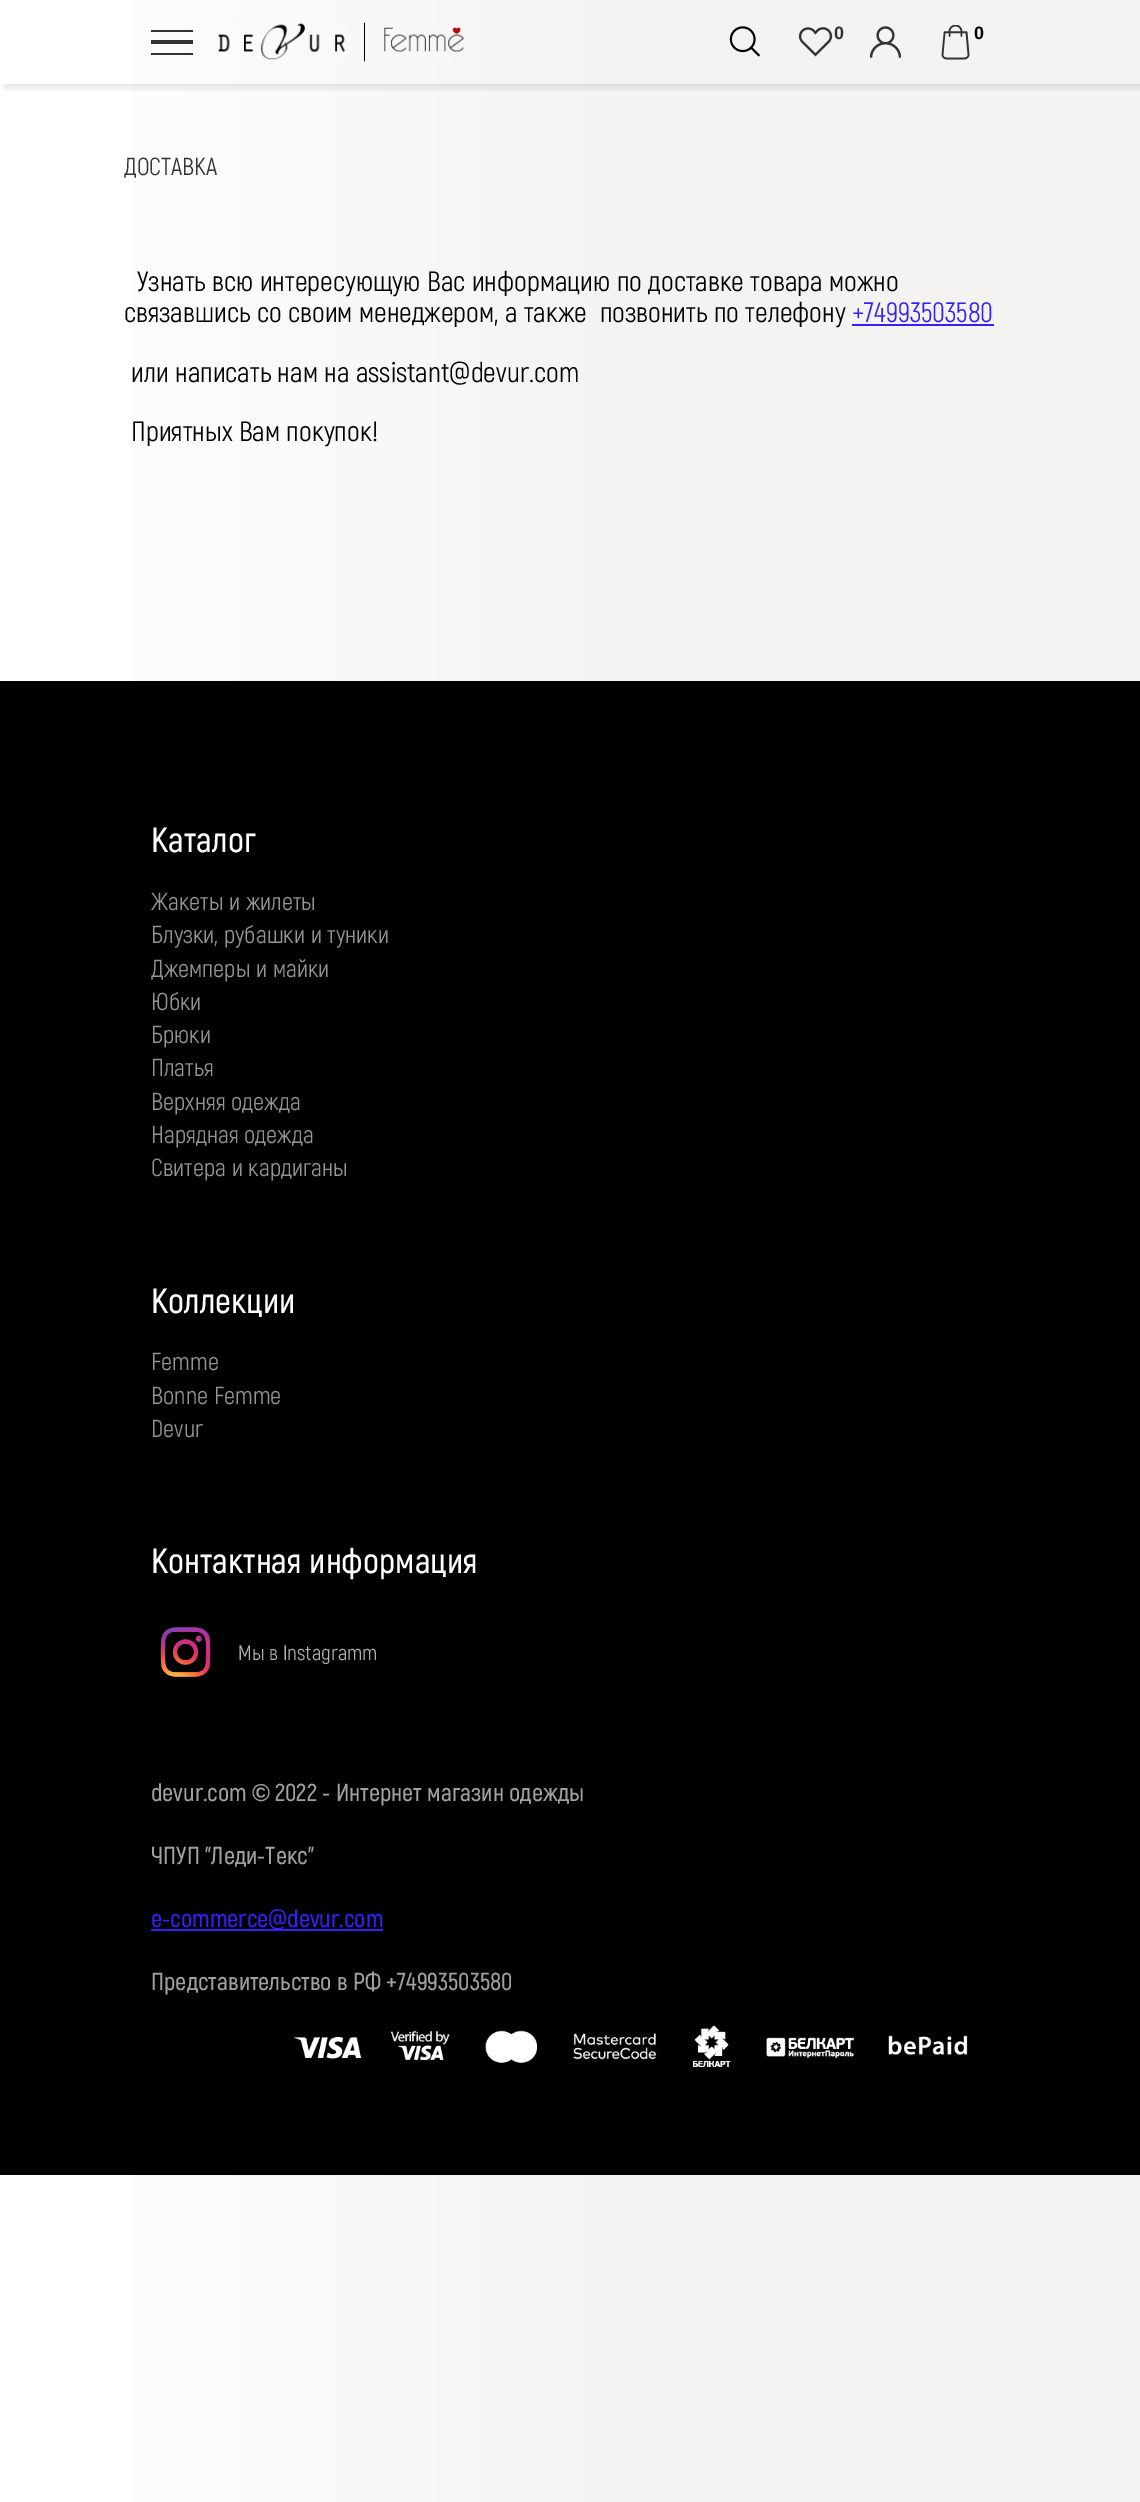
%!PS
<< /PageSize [1140 2502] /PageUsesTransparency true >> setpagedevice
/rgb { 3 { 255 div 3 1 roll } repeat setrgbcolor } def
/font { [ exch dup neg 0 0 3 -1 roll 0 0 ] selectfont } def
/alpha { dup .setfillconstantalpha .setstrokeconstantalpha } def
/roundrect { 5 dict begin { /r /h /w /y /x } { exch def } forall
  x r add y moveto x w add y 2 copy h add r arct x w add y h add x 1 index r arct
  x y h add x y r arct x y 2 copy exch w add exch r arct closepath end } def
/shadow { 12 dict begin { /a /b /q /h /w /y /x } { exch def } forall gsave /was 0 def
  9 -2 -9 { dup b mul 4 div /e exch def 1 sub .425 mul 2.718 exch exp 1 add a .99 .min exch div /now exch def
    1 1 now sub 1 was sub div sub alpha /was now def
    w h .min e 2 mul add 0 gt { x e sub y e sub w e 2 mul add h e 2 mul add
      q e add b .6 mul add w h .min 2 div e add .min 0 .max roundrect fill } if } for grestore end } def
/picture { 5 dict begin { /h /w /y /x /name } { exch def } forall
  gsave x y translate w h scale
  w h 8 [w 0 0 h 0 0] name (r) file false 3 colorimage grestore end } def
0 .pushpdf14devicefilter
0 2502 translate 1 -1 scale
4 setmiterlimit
255 255 255 rgb
0 0 1140 2502 rectfill
gsave 133 0 moveto 1140 0 lineto 1140 2502 lineto 133 2502 lineto closepath clip newpath
<< /ShadingType 2 /ColorSpace /DeviceRGB /Coords [0 1251 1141 1251] /Extend [true true] /Function << /FunctionType 3 /Domain [0 1] /Functions [<< /FunctionType 2 /Domain [0 1] /C0 [1 1 1] /C1 [0.953 0.953 0.953] /N 1 >> << /FunctionType 2 /Domain [0 1] /C0 [0.953 0.953 0.953] /C1 [0.957 0.953 0.945] /N 1 >>] /Bounds [0.56] /Encode [0 1 0 1] >> >> shfill grestore
gsave
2 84 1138 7 rectclip
0 0 0 rgb
4 4 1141 84 0 3.5 0.1 shadow
grestore
[
  [151 30 42 2 51 51 51]
  [151 40 42 4 51 51 51]
  [151 53 42 2 51 51 51]
] { aload pop rgb rectfill } forall
(img/1.rgb) 218 22 246 40 picture
(img/2.rgb) 729 26 32 31 picture
(img/3.rgb) 798 27 35 30 picture
(img/4.rgb) 870 26 31 32 picture
(img/5.rgb) 941 25 29 35 picture
53 32 245 rgb
852 324 142 2 rectfill
0 0 0 rgb
0 681 1140 1494 rectfill
(img/6.rgb) 160 1627 51 50 picture
53 32 245 rgb
151 1929 232 2 rectfill
(img/7.rgb) 294 2025 674 42 picture
/LiberationSans-Bold 18 font
51 51 51 rgb
834 39 moveto 2 0 (0) ashow
0 0 0 rgb
974 39 moveto 2 0 (0) ashow
/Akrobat-Regular 24.5 font
51 51 51 rgb
124 175 moveto (ДОСТАВКА) show
/Akrobat-Regular 28 font
0 0 0 rgb
137 291 moveto (Узнать всю интересующую Вас информацию по доставке товара можно) show
124 322 moveto (связавшись со своим менеджером, а также  позвонить по телефону) show
53 32 245 rgb
852 322 moveto (+74993503580) show
0 0 0 rgb
131 382 moveto (или написать нам на assistant@devur.com) show
131 441 moveto (Приятных Вам покупок!) show
/Akrobat-SemiBold 35 font
255 255 255 rgb
151 852 moveto (Каталог) show
/Akrobat-Regular 24.5 font
148 148 148 rgb
[
  [(Жакеты и жилеты) 151 910]
  [(Блузки, рубашки и туники) 151 943]
  [(Джемперы и майки) 151 977]
  [(Юбки) 151 1010]
  [(Брюки) 151 1043]
  [(Платья) 151 1076]
  [(Верхняя одежда) 151 1110]
  [(Нарядная одежда) 151 1143]
  [(Свитера и кардиганы) 151 1176]
] { aload pop moveto show } forall
/Akrobat-SemiBold 35 font
255 255 255 rgb
151 1313 moveto (Коллекции) show
/Akrobat-Regular 24.5 font
148 148 148 rgb
[
  [(Femme) 151 1370]
  [(Bonne Femme) 151 1404]
  [(Devur) 151 1437]
] { aload pop moveto show } forall
/Akrobat-SemiBold 35 font
255 255 255 rgb
151 1573 moveto (Контактная информация) show
/Akrobat-Regular 21 font
177 177 177 rgb
238 1660 moveto (Мы в Instagramm) show
/Akrobat-SemiBold 24.5 font
160 160 160 rgb
151 1801 moveto (devur.com) show
/LiberationSans-Bold 24.5 font
252 1801 moveto (©) show
/Akrobat-SemiBold 24.5 font
275 1801 moveto (2022 - Интернет магазин одежды) show
151 1864 moveto (ЧПУП "Леди-Текс") show
53 32 245 rgb
151 1927 moveto (e-commerce@devur.com) show
160 160 160 rgb
151 1990 moveto (Представительство в РФ +74993503580) show
.poppdf14devicefilter showpage
